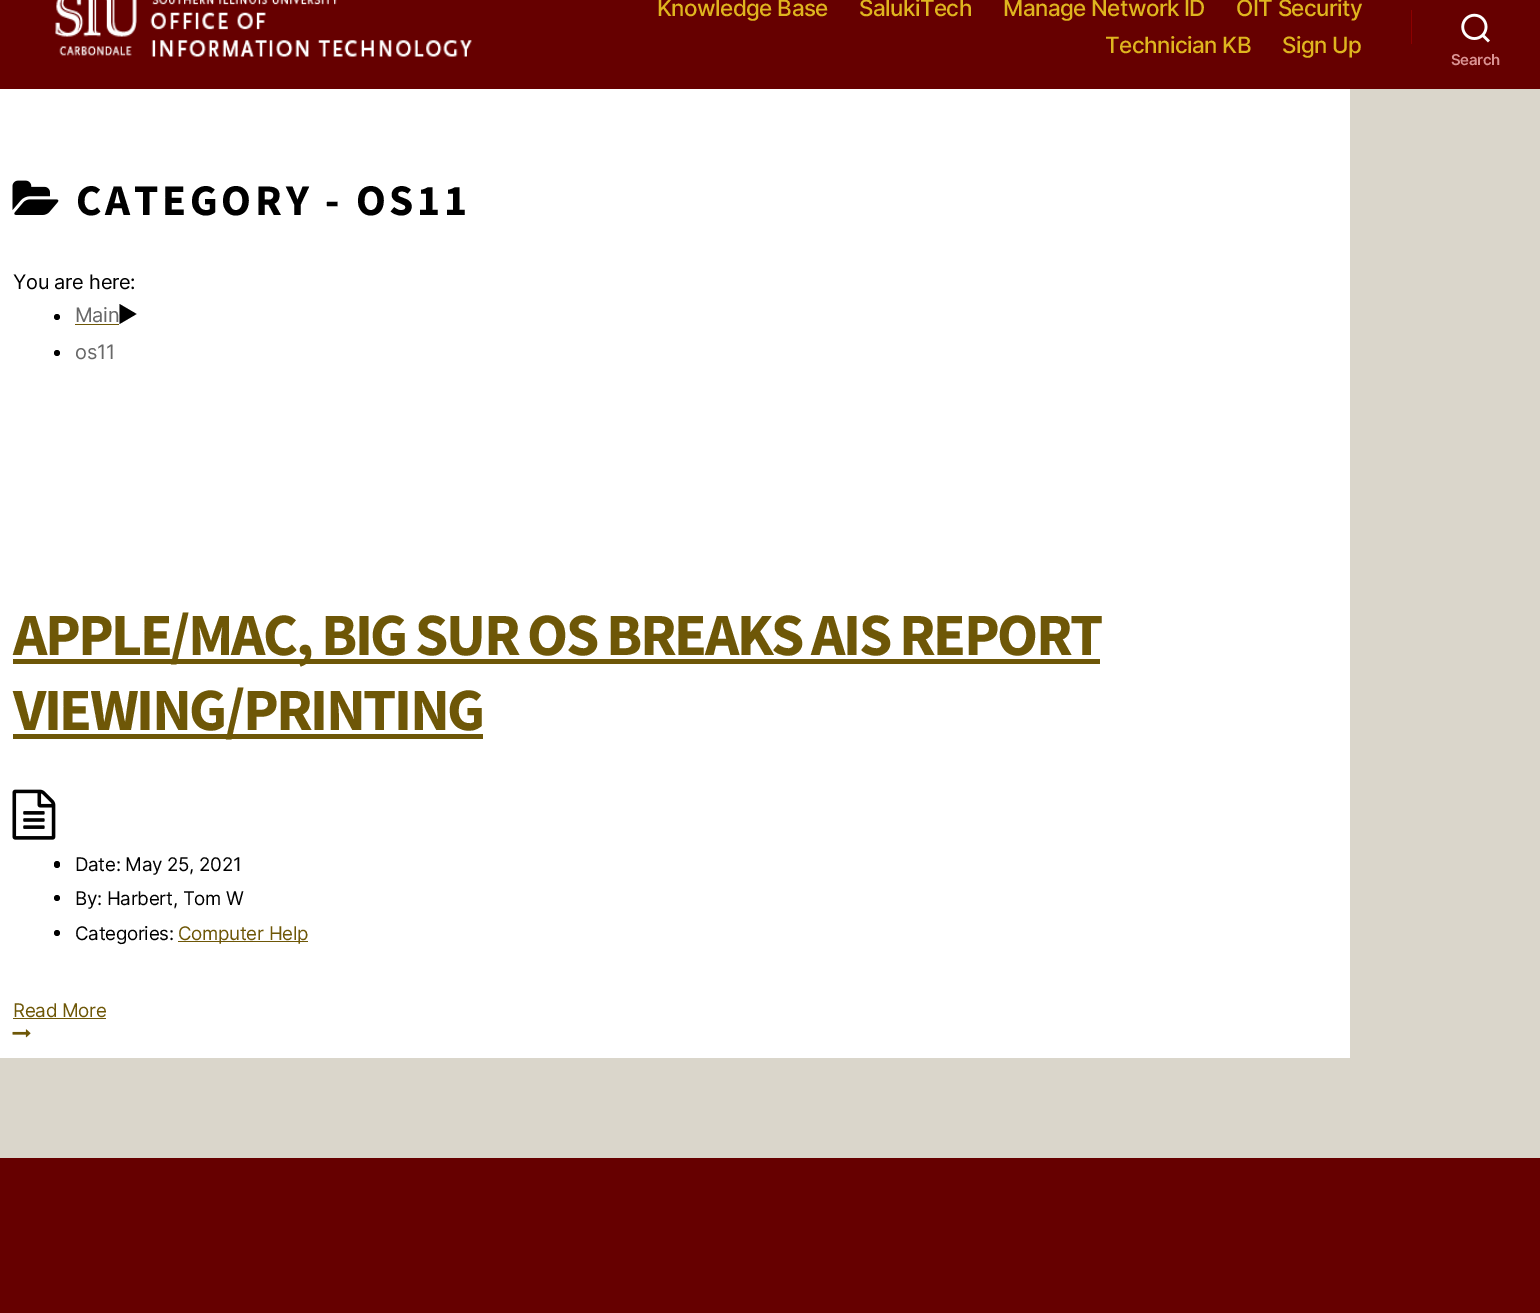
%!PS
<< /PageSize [1540 1313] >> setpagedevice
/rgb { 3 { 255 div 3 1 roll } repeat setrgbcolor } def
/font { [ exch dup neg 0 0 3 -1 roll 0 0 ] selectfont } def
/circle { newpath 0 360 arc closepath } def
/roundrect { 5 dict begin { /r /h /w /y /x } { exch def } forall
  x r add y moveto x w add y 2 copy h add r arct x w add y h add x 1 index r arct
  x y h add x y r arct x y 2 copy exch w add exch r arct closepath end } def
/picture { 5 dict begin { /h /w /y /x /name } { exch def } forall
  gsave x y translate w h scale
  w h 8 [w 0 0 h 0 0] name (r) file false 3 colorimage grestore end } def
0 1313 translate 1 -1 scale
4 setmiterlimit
218 214 203 rgb
0 0 1540 1313 rectfill
102 0 0 rgb
0 0 1540 89 rectfill
(img/1.rgb) 55 0 417 57 picture
142 0 0 rgb
1411 10 1 34 rectfill
(img/2.rgb) 1461 13 29 30 picture
255 255 255 rgb
0 89 1350 969 rectfill
(img/3.rgb) 12 180 47 35 picture
0 0 0 rgb
57 317 3 circle fill
110 87 7 rgb
75 324 44 1 rectfill
0 0 0 rgb
119.5 304 moveto 136.5 314 lineto 119.5 324 lineto closepath fill
57 353 3 circle fill
110 87 7 rgb
13 659 1087 5 rectfill
13 734 470 5 rectfill
(img/4.rgb) 12 789 44 51 picture
0 0 0 rgb
54 861 6 7 3 roundrect fill
57 898 3 circle fill
57 933 3 circle fill
110 87 7 rgb
178 941 130 1 rectfill
13 1018 93 1 rectfill
(img/5.rgb) 12 1029 19 9 picture
102 0 0 rgb
0 1158 1540 155 rectfill
/Inter-Medium 22.5 font
223 181 31 rgb
657 16 moveto -0.6 0 (Knowledge Base) ashow
859 16 moveto -0.6 0 (SalukiTech) ashow
1003 16 moveto -0.6 0 (Manage Network ID) ashow
1236 16 moveto -0.6 0 (OIT Security) ashow
1105 53 moveto -0.6 0 (Technician KB) ashow
1282 53 moveto -0.6 0 (Sign Up) ashow
/Inter-SemiBold 15 font
219 147 147 rgb
1451 65 moveto -0.3 0 (Search) ashow
/SourceSansPro-Bold 43.75 font
0 0 0 rgb
76 215 moveto 3.75 0 (CATEGORY - OS11) ashow
/Inter-Regular 20 font
13 289 moveto -0.3 0 (You are here:) ashow
104 104 104 rgb
75 322 moveto -0.3 0 (Main) ashow
75 359 moveto -0.3 0 (os11) ashow
/SourceSansPro-Bold 60 font
110 87 7 rgb
13 655 moveto -2.5 0 (APPLE/MAC, BIG SUR OS BREAKS AIS REPORT) ashow
13 730 moveto -2.5 0 (VIEWING/PRINTING) ashow
/Inter-Regular 18.75 font
0 0 0 rgb
75 871 moveto -0.3 0 (Date: May 25, 2021) ashow
75 905 moveto -0.3 0 (By: Harbert, Tom W) ashow
75 940 moveto -0.3 0 (Categories:) ashow
110 87 7 rgb
178 940 moveto -0.3 0 (Computer Help) ashow
13 1017 moveto -0.3 0 (Read More) ashow
showpage
